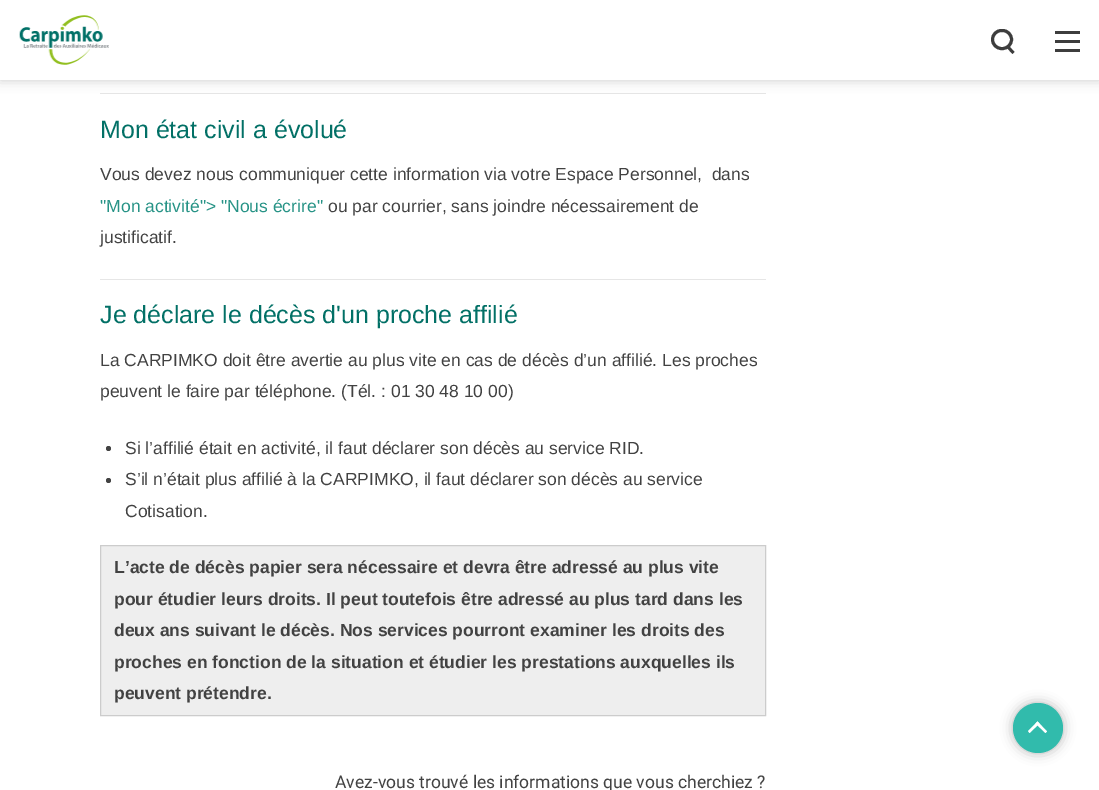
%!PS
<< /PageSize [1099 790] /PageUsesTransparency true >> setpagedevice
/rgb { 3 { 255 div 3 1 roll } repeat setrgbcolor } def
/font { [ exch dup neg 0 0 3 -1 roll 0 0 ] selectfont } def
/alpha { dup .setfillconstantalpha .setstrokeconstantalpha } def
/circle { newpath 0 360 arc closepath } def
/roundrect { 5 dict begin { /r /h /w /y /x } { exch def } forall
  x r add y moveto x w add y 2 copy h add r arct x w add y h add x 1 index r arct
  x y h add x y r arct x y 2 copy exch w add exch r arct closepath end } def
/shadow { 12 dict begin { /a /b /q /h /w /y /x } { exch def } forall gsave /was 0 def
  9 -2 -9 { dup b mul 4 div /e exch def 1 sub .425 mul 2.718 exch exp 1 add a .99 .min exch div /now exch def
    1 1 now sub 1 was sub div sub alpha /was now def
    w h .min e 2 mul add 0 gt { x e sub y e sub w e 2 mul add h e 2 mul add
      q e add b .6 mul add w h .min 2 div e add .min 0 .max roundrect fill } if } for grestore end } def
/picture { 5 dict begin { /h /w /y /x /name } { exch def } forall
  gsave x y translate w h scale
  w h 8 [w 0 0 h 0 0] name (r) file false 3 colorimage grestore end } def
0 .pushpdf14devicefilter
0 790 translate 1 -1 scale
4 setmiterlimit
255 255 255 rgb
0 0 1099 790 rectfill
230 230 230 rgb
100 93 666 1 rectfill
0 0 0 rgb
0 0 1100 80 0 6 0.2 shadow
255 255 255 rgb
0 0 1099 80 rectfill
(img/1.rgb) 19 15 90 50 picture
61 61 61 rgb
1008.5 45.5 moveto 1014.5 52 lineto 1012.5 54 lineto 1006.5 47.5 lineto closepath fill
3 setlinewidth
992.5 30.5 19 18 9 roundrect stroke
[
  [1055 31 25 3 61 61 61]
  [1055 40 25 3 61 61 61]
  [1055 49 25 3 61 61 61]
  [100 279 666 1 230 230 230]
] { aload pop rgb rectfill } forall
66 66 66 rgb
108.5 448.5 2.5 circle fill
108.5 480.5 2.5 circle fill
238 238 238 rgb
100.5 545.5 moveto 765.5 545.5 lineto 765.5 715.5 lineto 100.5 715.5 lineto closepath gsave fill grestore
204 204 204 rgb
1 setlinewidth
stroke
0 0 0 rgb
1013 703 50 50 25 6 0.3 shadow
49 187 172 rgb
1038 728 25 circle fill
255 255 255 rgb
1028 731 moveto 1037.5 721.5 lineto 1039.5 723.5 lineto 1029.5 733 lineto closepath fill
1035.5 723.5 moveto 1037.5 721.5 lineto 1047 731.5 lineto 1045.5 733 lineto closepath fill
/LiberationSans-Regular 25 font
2 112 102 rgb
100 138 moveto (Mon état civil a évolué) show
/LiberationSans-Regular 17.5 font
66 66 66 rgb
100 180 moveto (Vous devez nous communiquer cette information via votre Espace Personnel,  dans) show
39 147 134 rgb
100 212 moveto ("Mon activité"> "Nous écrire") show
66 66 66 rgb
328 212 moveto (ou par courrier, sans joindre nécessairement de) show
100 243 moveto (justificatif.) show
/LiberationSans-Regular 25 font
2 112 102 rgb
100 323 moveto (Je déclare le décès d'un proche affilié) show
/LiberationSans-Regular 17.5 font
66 66 66 rgb
[
  [(La CARPIMKO doit être avertie au plus vite en cas de décès d’un affilié. Les proches) 100 366]
  [(peuvent le faire par téléphone. \(Tél. : 01 30 48 10 00\)) 100 397]
  [(Si l’affilié était en activité, il faut déclarer son décès au service RID.) 125 454]
  [(S’il n’était plus affilié à la CARPIMKO, il faut déclarer son décès au service) 125 485]
  [(Cotisation.) 125 517]
] { aload pop moveto show } forall
/LiberationSans-Bold 17.5 font
[
  [(L’acte de décès papier sera nécessaire et devra être adressé au plus vite) 114 573]
  [(pour étudier leurs droits. Il peut toutefois être adressé au plus tard dans les) 114 605]
  [(deux ans suivant le décès. Nos services pourront examiner les droits des) 114 636]
  [(proches en fonction de la situation et étudier les prestations auxquelles ils) 114 668]
  [(peuvent prétendre.) 114 699]
] { aload pop moveto show } forall
/Roboto-Regular 17.5 font
335 788 moveto (Avez-vous trouvé les informations que vous cherchiez ?) show
.poppdf14devicefilter showpage
